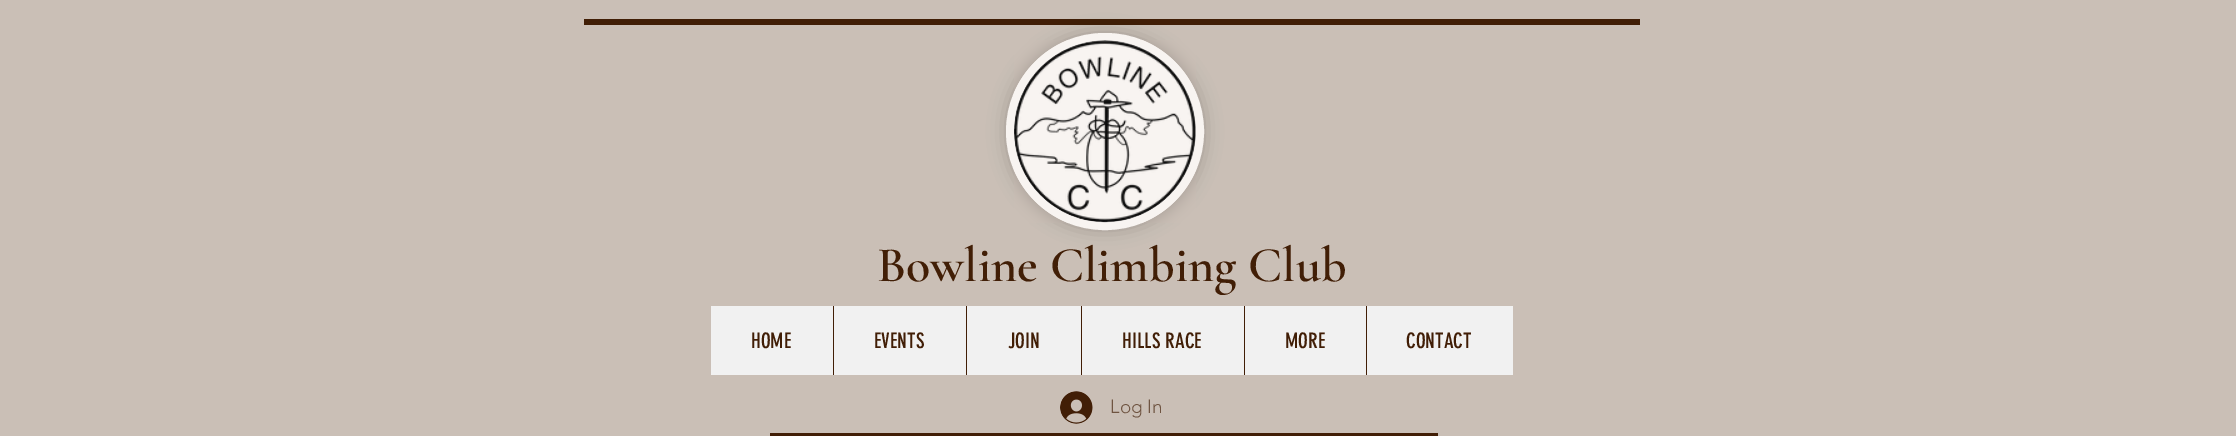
%!PS
<< /PageSize [2236 436] /PageUsesTransparency true >> setpagedevice
/rgb { 3 { 255 div 3 1 roll } repeat setrgbcolor } def
/font { [ exch dup neg 0 0 3 -1 roll 0 0 ] selectfont } def
/alpha { dup .setfillconstantalpha .setstrokeconstantalpha } def
/roundrect { 5 dict begin { /r /h /w /y /x } { exch def } forall
  x r add y moveto x w add y 2 copy h add r arct x w add y h add x 1 index r arct
  x y h add x y r arct x y 2 copy exch w add exch r arct closepath end } def
/shadow { 12 dict begin { /a /b /q /h /w /y /x } { exch def } forall gsave /was 0 def
  9 -2 -9 { dup b mul 4 div /e exch def 1 sub .425 mul 2.718 exch exp 1 add a .99 .min exch div /now exch def
    1 1 now sub 1 was sub div sub alpha /was now def
    w h .min e 2 mul add 0 gt { x e sub y e sub w e 2 mul add h e 2 mul add
      q e add b .6 mul add w h .min 2 div e add .min 0 .max roundrect fill } if } for grestore end } def
/picture { 5 dict begin { /h /w /y /x /name } { exch def } forall
  gsave x y translate w h scale
  w h 8 [w 0 0 h 0 0] name (r) file false 3 colorimage grestore end } def
0 .pushpdf14devicefilter
0 436 translate 1 -1 scale
4 setmiterlimit
202 191 182 rgb
0 0 2236 436 rectfill
65 30 6 rgb
584 19 1056 6 rectfill
0 0 0 rgb
1006 33 198 197 98.5 9 0.2 shadow
248 244 241 rgb
1010 37 190 189 94.5 roundrect gsave fill grestore
8 setlinewidth
stroke
(img/1.rgb) 1014 40 182 183 picture
[
  [711 306 802 69 241 241 241]
  [833 306 1 69 65 30 6]
  [966 306 1 69 65 30 6]
  [1081 306 1 69 65 30 6]
  [1244 306 1 69 65 30 6]
  [1366 306 1 69 65 30 6]
] { aload pop rgb rectfill } forall
(img/2.rgb) 1060 391 33 33 picture
770 433 668 3 rectfill
/CormorantGaramond-SemiBold 50 font
877 281 moveto (Bowline Climbing Club) show
/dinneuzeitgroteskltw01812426-Regular 21 font
[
  [(HOME) 751 348]
  [(EVENTS) 874 348]
  [(JOIN) 1008 348]
  [(HILLS RACE) 1122 348]
  [(MORE) 1285 348]
  [(CONTACT) 1406 348]
] { aload pop moveto show } forall
/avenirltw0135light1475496-Light 19 font
111 84 65 rgb
1110 413 moveto (Log In) show
.poppdf14devicefilter showpage
